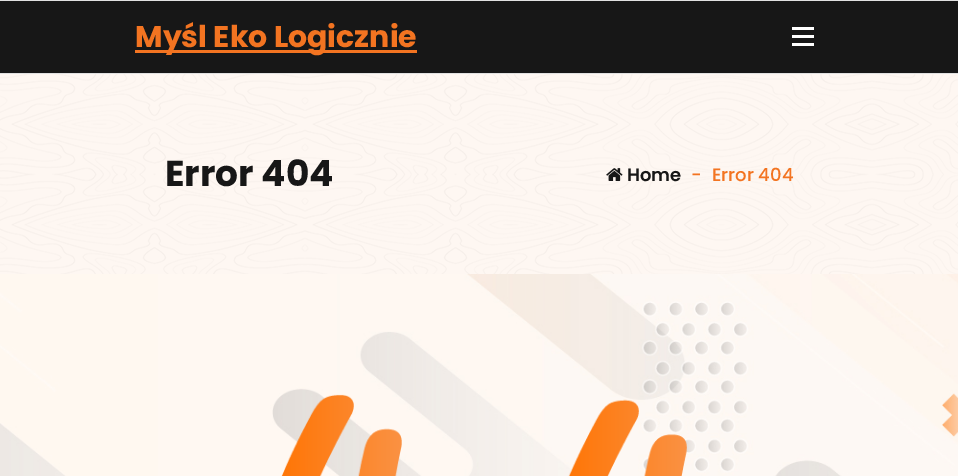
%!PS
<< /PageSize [958 476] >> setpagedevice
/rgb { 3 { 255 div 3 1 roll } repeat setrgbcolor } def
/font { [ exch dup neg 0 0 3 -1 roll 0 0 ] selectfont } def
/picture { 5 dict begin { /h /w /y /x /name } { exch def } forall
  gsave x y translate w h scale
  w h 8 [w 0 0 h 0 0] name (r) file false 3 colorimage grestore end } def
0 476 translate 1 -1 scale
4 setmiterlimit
255 255 255 rgb
0 0 958 476 rectfill
[
  [0 1 958 72 23 23 23]
  [0 0 958 1 225 225 225]
  [0 73 958 1 225 225 225]
  [135 50 282 3 243 116 33]
  [792 27 22 3 255 255 255]
  [792 35 22 3 255 255 255]
  [792 43 22 3 255 255 255]
] { aload pop rgb rectfill } forall
(img/1.rgb) 0 74 958 200 picture
(img/2.rgb) 606 168 17 13 picture
(img/3.rgb) 0 274 958 202 picture
(img/4.rgb) 281 394 406 82 picture
/Poppins-Bold 30 font
243 116 33 rgb
135 47 moveto (Myśl Eko Logicznie) show
/Poppins-Bold 36 font
23 23 23 rgb
165 186 moveto (Error 404) show
/Poppins-SemiBold 18 font
627 181 moveto (Home) show
/Poppins-Medium 18 font
243 116 33 rgb
691 181 moveto (-) show
712 181 moveto (Error 404) show
showpage
